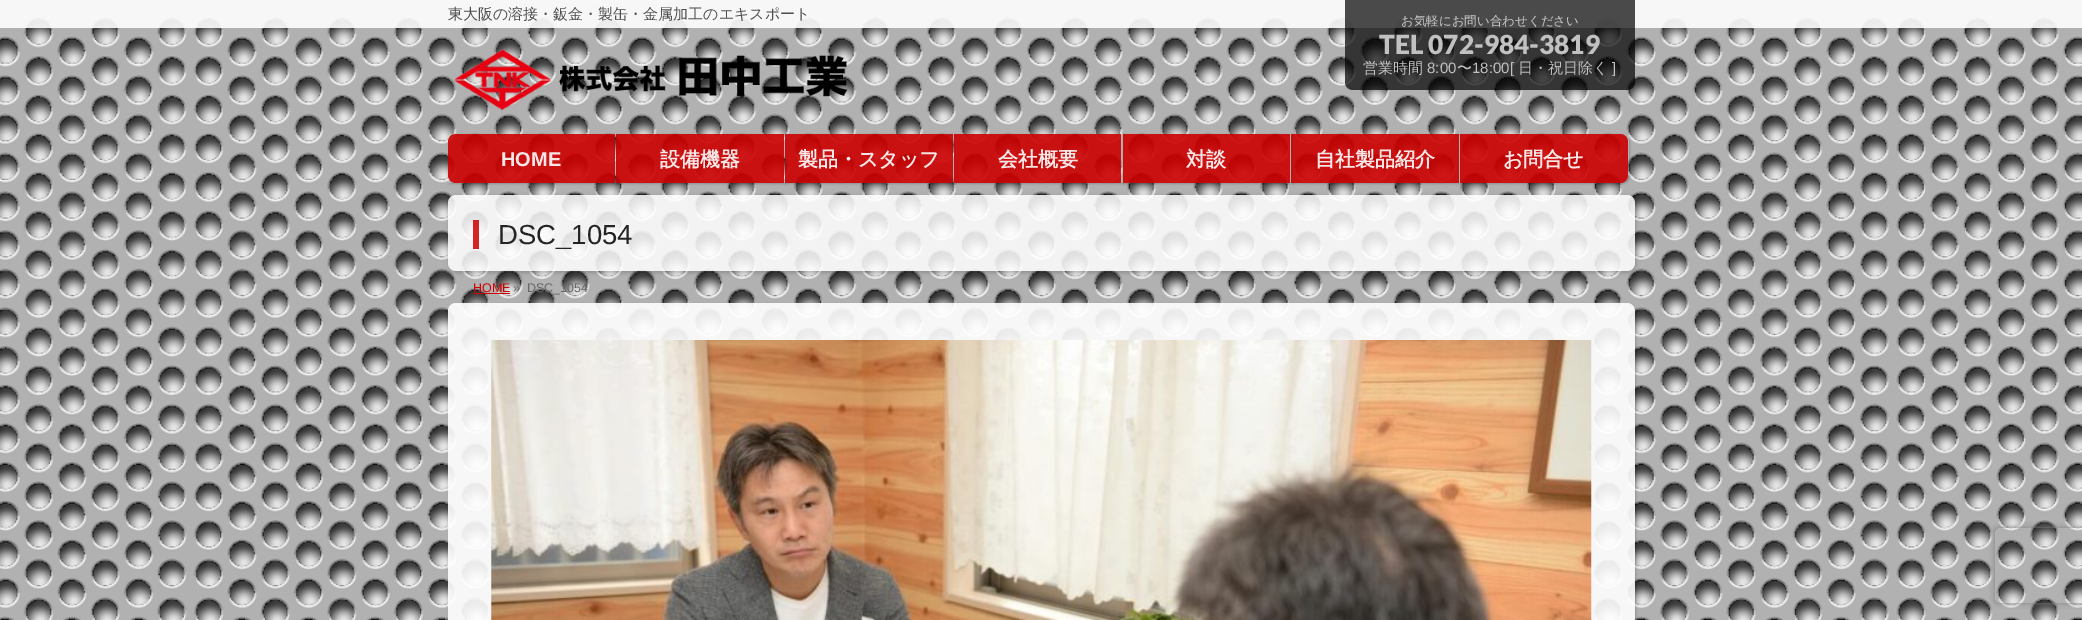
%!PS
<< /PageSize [2082 620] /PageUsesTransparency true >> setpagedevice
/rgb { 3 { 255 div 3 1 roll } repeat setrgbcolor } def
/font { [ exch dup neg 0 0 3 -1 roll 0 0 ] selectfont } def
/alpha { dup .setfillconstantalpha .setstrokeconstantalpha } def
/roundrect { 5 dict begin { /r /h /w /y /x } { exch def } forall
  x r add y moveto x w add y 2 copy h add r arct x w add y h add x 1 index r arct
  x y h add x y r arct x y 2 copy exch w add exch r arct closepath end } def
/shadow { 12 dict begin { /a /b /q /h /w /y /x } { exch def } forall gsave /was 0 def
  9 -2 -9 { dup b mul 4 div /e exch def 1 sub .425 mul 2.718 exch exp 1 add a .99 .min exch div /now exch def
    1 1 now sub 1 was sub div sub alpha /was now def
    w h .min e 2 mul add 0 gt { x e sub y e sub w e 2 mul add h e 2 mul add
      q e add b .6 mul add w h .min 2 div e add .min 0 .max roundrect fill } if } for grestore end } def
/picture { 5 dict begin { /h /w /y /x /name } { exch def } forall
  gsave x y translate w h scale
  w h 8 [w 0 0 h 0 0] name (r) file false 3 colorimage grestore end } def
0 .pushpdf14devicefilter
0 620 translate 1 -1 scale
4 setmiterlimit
255 255 255 rgb
0 0 2082 620 rectfill
(img/1.rgb) 0 0 2082 620 picture
0.9 alpha
0 0 2082 28 rectfill
1 alpha
(img/2.rgb) 454 49 394 61 picture
0.7 alpha
0 0 0 rgb
1345 0 moveto 1635 0 lineto 1635 82 lineto 1635 86.5 1631.5 90 1627 90 curveto 1353 90 lineto 1348.5 90 1345 86.5 1345 82 curveto closepath fill
gsave
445 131 moveto 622 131 lineto 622 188 lineto 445 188 lineto closepath 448 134 moveto 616 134 lineto 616 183 lineto 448 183 lineto closepath eoclip newpath
1 alpha
449 135 169 49 0 1 0.2 shadow
grestore
0.9 alpha
204 0 0 rgb
456 134 moveto 615 134 lineto 615 183 lineto 456 183 lineto 451.5 183 448 179.5 448 175 curveto 448 142 lineto 448 137.5 451.5 134 456 134 curveto closepath fill
gsave
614 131 moveto 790 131 lineto 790 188 lineto 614 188 lineto closepath 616 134 moveto 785 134 lineto 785 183 lineto 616 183 lineto closepath eoclip newpath
1 alpha
0 0 0 rgb
618 135 168 49 0 1 0.2 shadow
grestore
616 134 168 49 rectfill
gsave
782 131 moveto 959 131 lineto 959 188 lineto 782 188 lineto closepath 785 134 moveto 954 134 lineto 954 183 lineto 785 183 lineto closepath eoclip newpath
1 alpha
0 0 0 rgb
786 135 169 49 0 1 0.2 shadow
grestore
785 134 168 49 rectfill
gsave
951 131 moveto 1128 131 lineto 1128 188 lineto 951 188 lineto closepath 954 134 moveto 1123 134 lineto 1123 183 lineto 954 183 lineto closepath eoclip newpath
1 alpha
0 0 0 rgb
955 135 169 49 0 1 0.2 shadow
grestore
954 134 167 49 rectfill
gsave
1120 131 moveto 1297 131 lineto 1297 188 lineto 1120 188 lineto closepath 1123 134 moveto 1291 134 lineto 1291 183 lineto 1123 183 lineto closepath eoclip newpath
1 alpha
0 0 0 rgb
1124 135 169 49 0 1 0.2 shadow
grestore
1123 134 167 49 rectfill
gsave
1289 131 moveto 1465 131 lineto 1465 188 lineto 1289 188 lineto closepath 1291 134 moveto 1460 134 lineto 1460 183 lineto 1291 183 lineto closepath eoclip newpath
1 alpha
0 0 0 rgb
1293 135 168 49 0 1 0.2 shadow
grestore
1291 134 168 49 rectfill
gsave
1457 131 moveto 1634 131 lineto 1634 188 lineto 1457 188 lineto closepath 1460 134 moveto 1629 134 lineto 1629 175 lineto 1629 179.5 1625.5 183 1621 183 curveto 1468 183 lineto 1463.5 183 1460 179.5 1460 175 curveto closepath eoclip newpath
1 alpha
0 0 0 rgb
1461 135 169 49 8 1 0.2 shadow
grestore
1460 134 moveto 1620 134 lineto 1624.5 134 1628 137.5 1628 142 curveto 1628 175 lineto 1628 179.5 1624.5 183 1620 183 curveto 1460 183 lineto closepath fill
gsave
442 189 moveto 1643 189 lineto 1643 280 lineto 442 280 lineto closepath 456 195 moveto 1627 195 lineto 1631.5 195 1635 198.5 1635 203 curveto 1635 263 lineto 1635 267.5 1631.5 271 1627 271 curveto 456 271 lineto 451.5 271 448 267.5 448 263 curveto 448 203 lineto 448 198.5 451.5 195 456 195 curveto closepath eoclip newpath
1 alpha
0 0 0 rgb
449 196 1187 77 8 2 0.2 shadow
grestore
0.85 alpha
255 255 255 rgb
448 195 1187 76 8 roundrect fill
204 0 0 rgb
473 220 6 29 rectfill
1 alpha
473 293 37 1 rectfill
gsave
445 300 moveto 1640 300 lineto 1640 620 lineto 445 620 lineto closepath 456 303 moveto 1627 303 lineto 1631.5 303 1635 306.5 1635 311 curveto 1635 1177 lineto 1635 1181.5 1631.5 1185 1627 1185 curveto 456 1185 lineto 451.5 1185 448 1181.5 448 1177 curveto 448 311 lineto 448 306.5 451.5 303 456 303 curveto closepath eoclip newpath
0 0 0 rgb
449 304 1187 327 8 1 0.2 shadow
grestore
0.9 alpha
255 255 255 rgb
448 303 1187 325 8 roundrect fill
1 alpha
(img/3.rgb) 491 340 1101 280 picture
gsave
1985 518 moveto 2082 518 lineto 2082 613 lineto 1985 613 lineto closepath 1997.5 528 moveto 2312.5 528 lineto 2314 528 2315 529 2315 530.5 curveto 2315 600.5 lineto 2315 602 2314 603 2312.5 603 curveto 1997.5 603 lineto 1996 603 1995 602 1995 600.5 curveto 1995 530.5 lineto 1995 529 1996 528 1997.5 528 curveto closepath eoclip newpath
128 128 128 rgb
1995 528 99 75 2.5 3 1 shadow
grestore
/WenQuanYiZenHei-Medium 15 font
77 77 77 rgb
448 19 moveto (東大阪の溶接・鈑金・製缶・金属加工のエキスポート) show
/WenQuanYiZenHei-Medium 12.5 font
201 201 201 rgb
1401 25 moveto (お気軽にお問い合わせください) show
/Lato-Black 26.25 font
193 193 193 rgb
1379 54 moveto (TEL 072-984-3819) show
/WenQuanYiZenHei-Medium 15 font
1363 73 moveto (営業時間) show
/LiberationSans-Regular 15 font
1427 73 moveto (8:00) show
/WenQuanYiZenHei-Medium 15 font
1457 73 moveto (〜) show
/LiberationSans-Regular 15 font
1472 73 moveto (18:00[) show
/WenQuanYiZenHei-Medium 15 font
1518 73 moveto (日・祝日除く) show
/LiberationSans-Regular 15 font
1612 73 moveto (]) show
/LiberationSans-Bold 20 font
249 231 231 rgb
501 166 moveto (HOME) show
/WenQuanYiZenHei-Bold 20 font
[
  [(設備機器) 660 166]
  [(製品・スタッフ) 798 166]
  [(会社概要) 998 166]
  [(対談) 1186 166]
  [(自社製品紹介) 1315 166]
  [(お問合せ) 1503 166]
] { aload pop moveto show } forall
gsave
479 220 1131 29 rectclip
/LiberationSans-Regular 27.5 font
36 36 36 rgb
498 244 moveto (DSC_1054) show
grestore
/LiberationSans-Regular 12.5 font
204 0 0 rgb
473 292 moveto (HOME) show
102 102 102 rgb
513 292 moveto (») show
527 292 moveto (DSC_1054) show
.poppdf14devicefilter showpage
